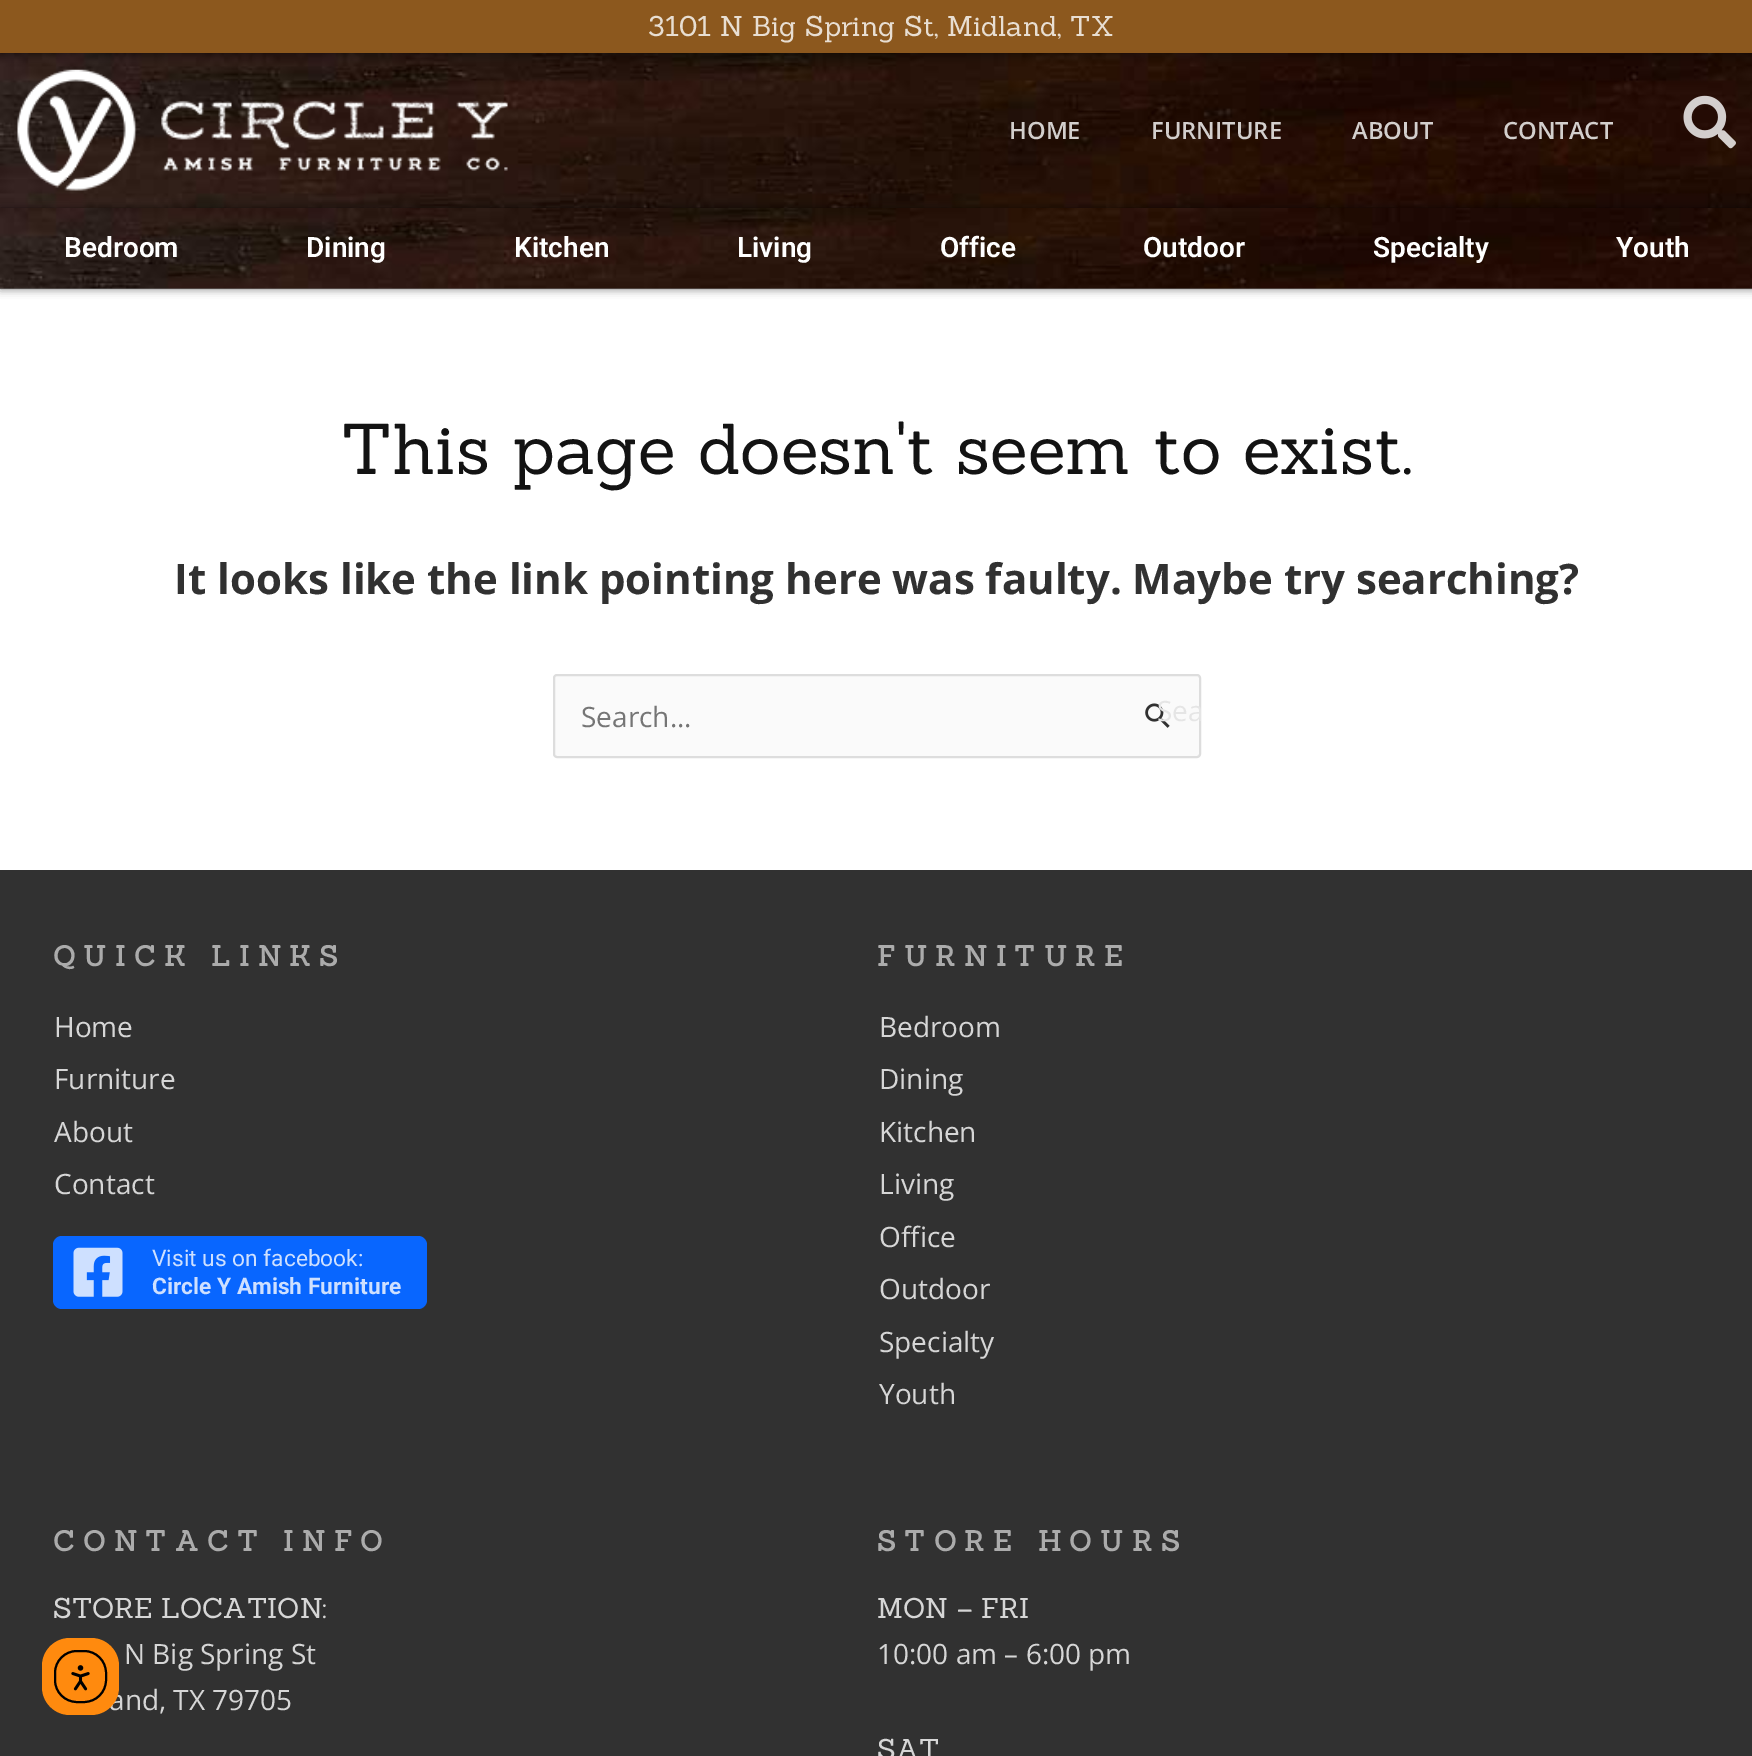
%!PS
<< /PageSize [1752 1756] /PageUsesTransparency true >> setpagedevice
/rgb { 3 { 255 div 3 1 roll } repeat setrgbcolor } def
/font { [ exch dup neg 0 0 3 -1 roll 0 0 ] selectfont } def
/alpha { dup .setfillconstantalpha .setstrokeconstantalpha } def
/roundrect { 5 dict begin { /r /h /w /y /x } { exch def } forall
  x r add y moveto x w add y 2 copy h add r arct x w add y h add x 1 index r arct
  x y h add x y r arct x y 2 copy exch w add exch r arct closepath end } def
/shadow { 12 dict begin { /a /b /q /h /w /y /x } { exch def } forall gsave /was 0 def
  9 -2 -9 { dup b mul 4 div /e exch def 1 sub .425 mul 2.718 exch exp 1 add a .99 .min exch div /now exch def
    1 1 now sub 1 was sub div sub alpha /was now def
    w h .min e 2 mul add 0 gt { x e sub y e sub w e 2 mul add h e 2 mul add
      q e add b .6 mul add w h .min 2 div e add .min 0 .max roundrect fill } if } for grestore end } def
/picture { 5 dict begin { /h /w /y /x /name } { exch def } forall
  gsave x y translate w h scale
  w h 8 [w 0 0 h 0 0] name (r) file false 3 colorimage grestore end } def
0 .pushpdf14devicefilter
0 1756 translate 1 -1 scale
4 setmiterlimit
255 255 255 rgb
0 0 1752 1756 rectfill
(img/1.rgb) 0 53 1752 155 picture
0 0 0 rgb
0 -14 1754 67 0 4.5 0.5 shadow
140 88 30 rgb
0 0 1752 53 rectfill
(img/2.rgb) 17 69 491 122 picture
(img/3.rgb) 1683 95 53 54 picture
0 0 0 rgb
0 208 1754 81 0 4.5 0.5 shadow
0.68 alpha
49 49 49 rgb
0 288 1752 1 rectfill
1 alpha
(img/4.rgb) 0 208 1752 81 picture
250 250 250 rgb
554 675 646 82 3 roundrect gsave fill grestore
221 221 221 rgb
2 setlinewidth
stroke
(img/5.rgb) 1145 703 25 25 picture
49 49 49 rgb
0 870 1752 886 rectfill
8 102 255 rgb
53 1236 374 73 9 roundrect fill
(img/6.rgb) 73 1247 50 50 picture
/Sanchez-Regular 28 font
232 222 210 rgb
648 36 moveto (3101 N Big Spring St, Midland, TX) show
/OpenSans-SemiBold 23.75 font
211 207 205 rgb
[
  [(HOME) 1009 139]
  [(FURNITURE) 1151 139]
  [(ABOUT) 1352 139]
  [(CONTACT) 1503 139]
] { aload pop moveto show } forall
/Roboto-SemiBold 28 font
255 255 255 rgb
[
  [(Bedroom) 64 257]
  [(Dining) 306 257]
  [(Kitchen) 514 257]
  [(Living) 737 257]
  [(Office) 940 257]
  [(Outdoor) 1143 257]
  [(Specialty) 1373 257]
  [(Youth) 1616 257]
] { aload pop moveto show } forall
/Sanchez-Regular 70 font
19 19 19 rgb
341 474 moveto (This page doesn't seem to exist.) show
/OpenSans-Bold 42 font
49 49 49 rgb
174 594 moveto (It looks like the link pointing here was faulty. Maybe try searching?) show
/OpenSans-Regular 28 font
117 117 117 rgb
581 727 moveto (Search...) show
gsave
1122 674 79 73 4 roundrect clip newpath
229 229 229 rgb
1157 721 moveto (Sea) show
grestore
/Sanchez-Bold 28 font
171 171 171 rgb
53 966 moveto 8.75 0 (QUICK LINKS) ashow
/OpenSans-Regular 28 font
214 214 214 rgb
[
  [(Home) 54 1037]
  [(Furniture) 54 1089]
  [(About) 54 1142]
  [(Contact) 54 1194]
] { aload pop moveto show } forall
/Roboto-Regular 22.75 font
206 224 255 rgb
152 1266 moveto (Visit us on facebook:) show
/Roboto-Bold 22.75 font
152 1294 moveto (Circle Y Amish Furniture) show
/Sanchez-Bold 28 font
171 171 171 rgb
877 966 moveto 8.75 0 (FURNITURE) ashow
/OpenSans-Regular 28 font
214 214 214 rgb
[
  [(Bedroom) 879 1037]
  [(Dining) 879 1089]
  [(Kitchen) 879 1142]
  [(Living) 879 1194]
  [(Office) 879 1247]
  [(Outdoor) 879 1299]
  [(Specialty) 879 1352]
  [(Youth) 879 1404]
] { aload pop moveto show } forall
/Sanchez-Bold 28 font
171 171 171 rgb
53 1551 moveto 8.75 0 (CONTACT INFO) ashow
/Sanchez-Regular 28 font
214 214 214 rgb
53 1618 moveto (STORE LOCATION:) show
/OpenSans-Regular 28 font
124 1664 moveto (N Big Spring St) show
109 1710 moveto (and, TX 79705) show
/Sanchez-Bold 28 font
171 171 171 rgb
877 1551 moveto 8.75 0 (STORE HOURS) ashow
/Sanchez-Regular 28 font
214 214 214 rgb
877 1618 moveto (MON – FRI) show
/OpenSans-Regular 28 font
877 1664 moveto (10:00 am – 6:00 pm) show
/Sanchez-Regular 28 font
877 1759 moveto (SAT) show
255 138 14 rgb
42 1638 77 77 28 roundrect fill
0 0 0 rgb
55 1651 51 51 22 roundrect stroke
(img/7.rgb) 71 1665 19 26 picture
.poppdf14devicefilter showpage
